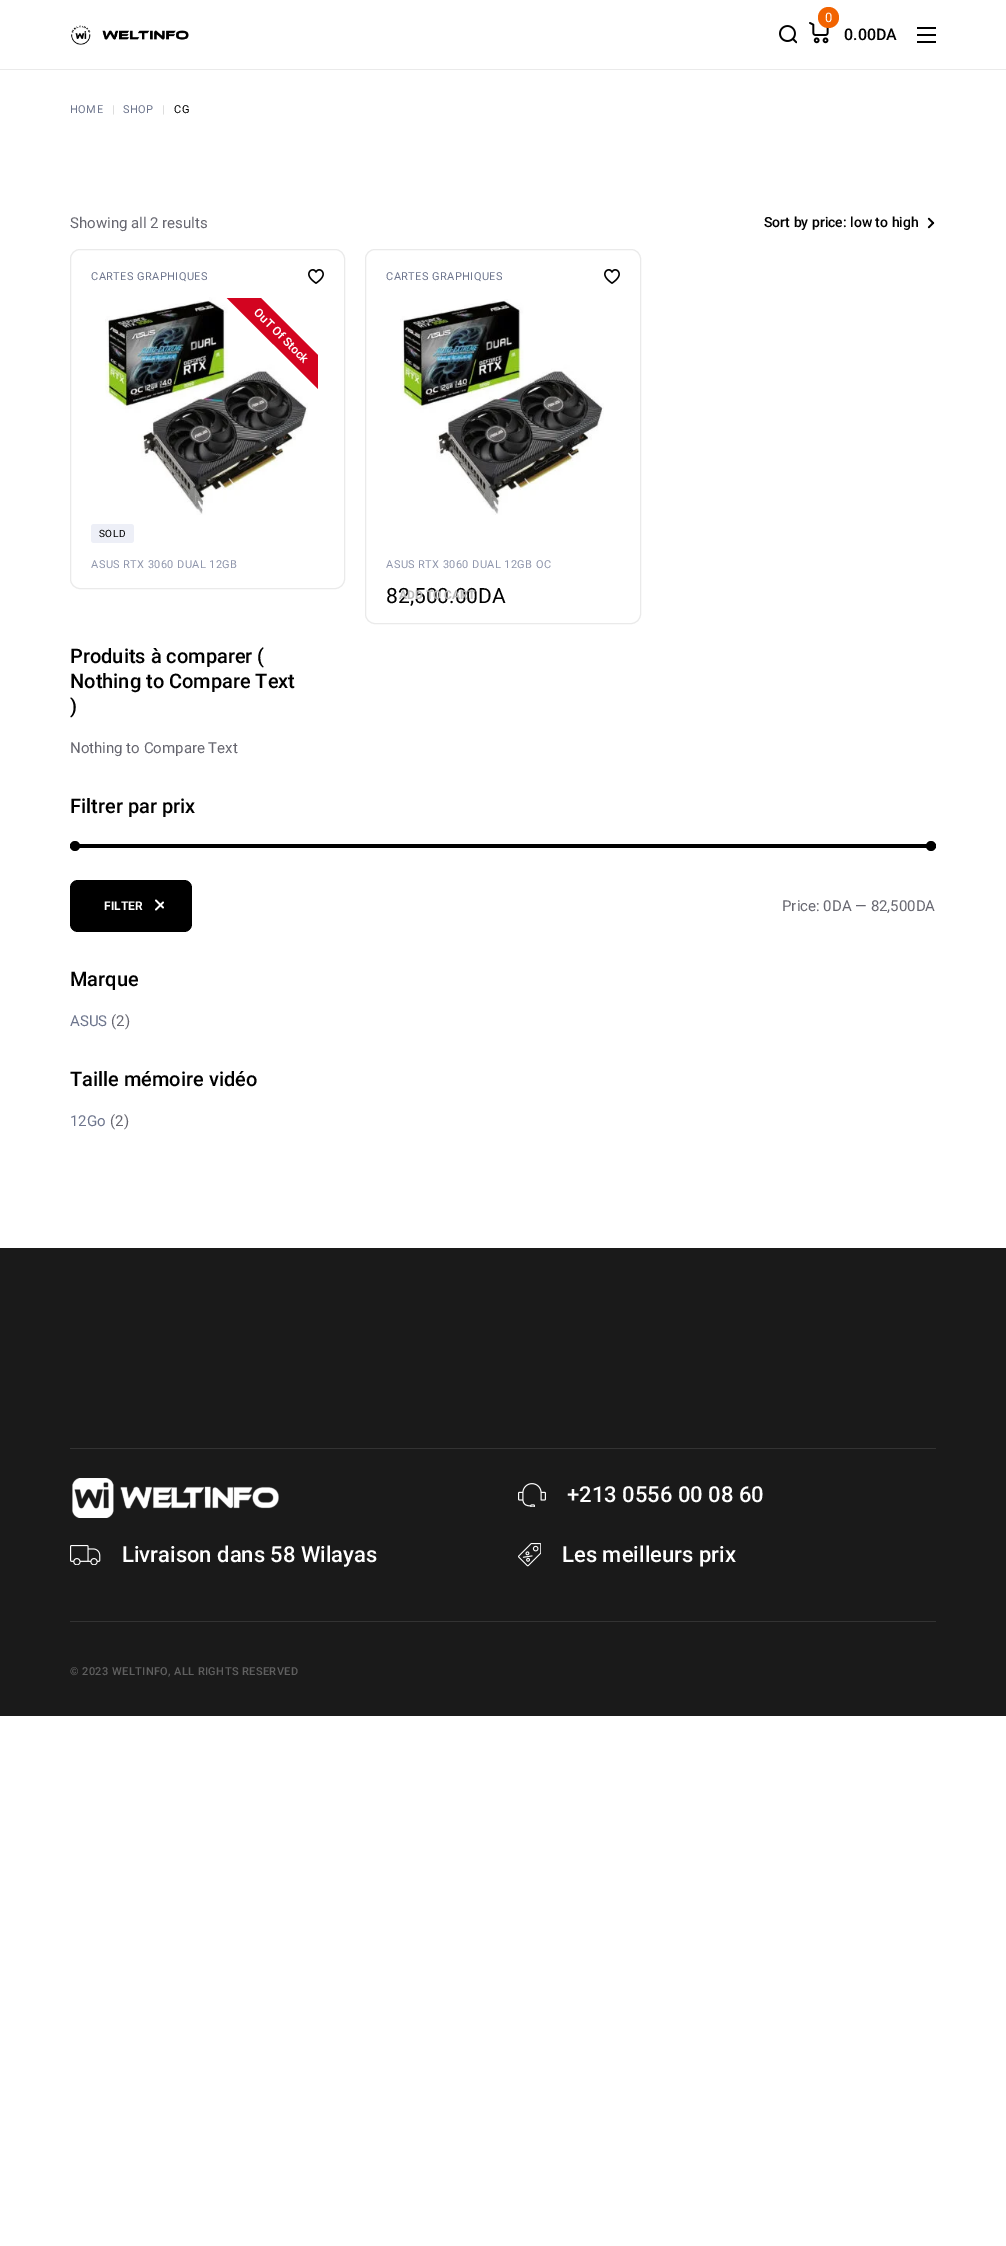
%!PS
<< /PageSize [1006 2246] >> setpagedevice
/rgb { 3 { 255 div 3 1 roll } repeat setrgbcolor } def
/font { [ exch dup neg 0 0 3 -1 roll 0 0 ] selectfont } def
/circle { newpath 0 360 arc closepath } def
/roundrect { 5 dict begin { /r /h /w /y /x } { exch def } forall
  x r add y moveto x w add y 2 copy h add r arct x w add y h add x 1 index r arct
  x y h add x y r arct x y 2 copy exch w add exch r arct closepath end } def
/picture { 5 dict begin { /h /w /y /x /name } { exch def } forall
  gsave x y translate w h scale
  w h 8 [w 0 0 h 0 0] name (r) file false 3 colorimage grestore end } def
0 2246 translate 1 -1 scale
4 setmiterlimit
255 255 255 rgb
0 0 1006 2246 rectfill
234 234 234 rgb
0 69 1006 1 rectfill
(img/1.rgb) 71 25 118 20 picture
(img/2.rgb) 779 25 18 19 picture
(img/3.rgb) 809 22 20 22 picture
242 99 0 rgb
828.5 17.5 10.5 circle fill
[
  [917 27 19 2 0 0 0]
  [917 34 19 2 0 0 0]
  [917 41 19 2 0 0 0]
] { aload pop rgb rectfill } forall
(img/4.rgb) 927 217 8 12 picture
234 234 234 rgb
70.5 249.5 274 339 9.5 roundrect stroke
(img/5.rgb) 308 269 16 15 picture
(img/6.rgb) 105 297 203 218 picture
gsave
223 298 95 95 rectclip
211 4 32 rgb
242 279 moveto 337 374 lineto 320 391 lineto 225 296 lineto closepath fill
grestore
237 239 247 rgb
91 524 43 19 3 roundrect fill
234 234 234 rgb
365.5 249.5 275 374 9.5 roundrect stroke
(img/5.rgb) 604 269 16 15 picture
(img/7.rgb) 400 299 204 216 picture
0 0 0 rgb
70 844 866 4 rectfill
75 846 5 circle fill
931 846 5 circle fill
70 880 122 52 8 roundrect fill
(img/8.rgb) 155 899 9 12 picture
26 26 26 rgb
0 1248 1006 468 rectfill
51 51 51 rgb
70 1448 866 1 rectfill
(img/9.rgb) 72 1478 207 40 picture
(img/10.rgb) 518 1483 28 24 picture
(img/11.rgb) 70 1545 31 20 picture
(img/12.rgb) 518 1543 23 24 picture
70 1621 866 1 rectfill
/Roboto-Regular 13 font
255 255 255 rgb
825 22 moveto (0) show
/Roboto-Medium 16 font
0 0 0 rgb
844 40 moveto (0.00DA) show
/Roboto-Regular 11 font
109 117 141 rgb
70 113 moveto 0.5 0 (HOME) ashow
209 209 209 rgb
112 113 moveto 0.5 0 (|) ashow
109 117 141 rgb
123 113 moveto 0.5 0 (SHOP) ashow
209 209 209 rgb
162 113 moveto 0.5 0 (|) ashow
0 0 0 rgb
174 113 moveto 0.5 0 (CG) ashow
/Roboto-Regular 15 font
103 103 112 rgb
70 228 moveto (Showing all 2 results) show
/Roboto-Medium 14 font
0 0 0 rgb
764 227 moveto (Sort by price: low to high) show
/Roboto-Regular 11 font
109 117 141 rgb
91 280 moveto 0.4 0 (CARTES GRAPHIQUES) ashow
/Roboto-SemiBold 12 font
255 255 255 rgb
gsave 253 313 translate 45 rotate 0 0 moveto (OuT Of Stock) show grestore
/Roboto-Regular 10 font
0 0 0 rgb
99 537 moveto 0.5 0 (SOLD) ashow
/Roboto-Regular 11 font
143 150 172 rgb
91 568 moveto 0.4 0 (ASUS RTX 3060 DUAL 12GB) ashow
109 117 141 rgb
386 280 moveto 0.4 0 (CARTES GRAPHIQUES) ashow
143 150 172 rgb
386 568 moveto 0.4 0 (ASUS RTX 3060 DUAL 12GB OC) ashow
/Roboto-Regular 21 font
0 0 0 rgb
386 603 moveto (82,500.00DA) show
/Roboto-Bold 12 font
187 187 187 rgb
399 599 moveto (ADD TO CART) show
/Roboto-Medium 20 font
0 0 0 rgb
[
  [(Produits à comparer \() 70 663]
  [(Nothing to Compare Text) 70 688]
  [(\)) 70 713]
] { aload pop moveto show } forall
/Roboto-Regular 15 font
103 103 112 rgb
70 753 moveto (Nothing to Compare Text) show
/Roboto-Medium 20 font
0 0 0 rgb
70 813 moveto (Filtrer par prix) show
/Roboto-Bold 12 font
255 255 255 rgb
104 910 moveto (FILTER) show
/Roboto-Regular 15 font
103 103 112 rgb
782 911 moveto (Price: 0DA — 82,500DA) show
/Roboto-Medium 20 font
0 0 0 rgb
70 986 moveto (Marque) show
/Roboto-Regular 15 font
109 117 141 rgb
70 1026 moveto (ASUS) show
103 103 112 rgb
111 1026 moveto (\(2\)) show
/Roboto-Medium 20 font
0 0 0 rgb
70 1086 moveto (Taille mémoire vidéo) show
/Roboto-Regular 15 font
109 117 141 rgb
70 1126 moveto (12Go) show
103 103 112 rgb
110 1126 moveto (\(2\)) show
/Roboto-Medium 22 font
255 255 255 rgb
[
  [(+213 0556 00 08 60) 567 1502]
  [(Livraison dans 58 Wilayas) 122 1562]
  [(Les meilleurs prix) 562 1562]
] { aload pop moveto show } forall
/Roboto-Medium 11 font
96 96 96 rgb
70 1675 moveto 0.4 0 (© 2023 WELTINFO, ALL RIGHTS RESERVED) ashow
showpage
